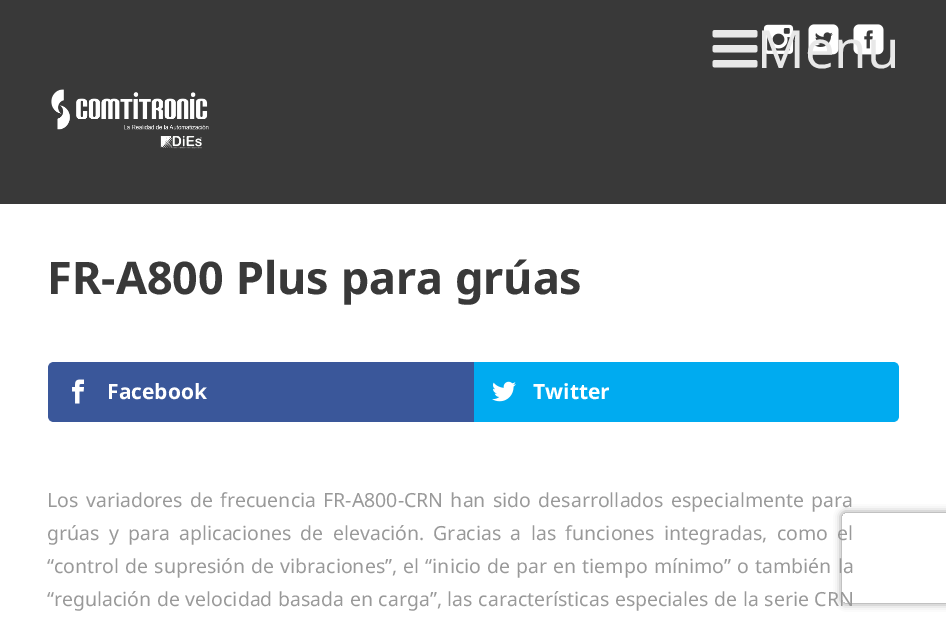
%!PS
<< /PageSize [946 624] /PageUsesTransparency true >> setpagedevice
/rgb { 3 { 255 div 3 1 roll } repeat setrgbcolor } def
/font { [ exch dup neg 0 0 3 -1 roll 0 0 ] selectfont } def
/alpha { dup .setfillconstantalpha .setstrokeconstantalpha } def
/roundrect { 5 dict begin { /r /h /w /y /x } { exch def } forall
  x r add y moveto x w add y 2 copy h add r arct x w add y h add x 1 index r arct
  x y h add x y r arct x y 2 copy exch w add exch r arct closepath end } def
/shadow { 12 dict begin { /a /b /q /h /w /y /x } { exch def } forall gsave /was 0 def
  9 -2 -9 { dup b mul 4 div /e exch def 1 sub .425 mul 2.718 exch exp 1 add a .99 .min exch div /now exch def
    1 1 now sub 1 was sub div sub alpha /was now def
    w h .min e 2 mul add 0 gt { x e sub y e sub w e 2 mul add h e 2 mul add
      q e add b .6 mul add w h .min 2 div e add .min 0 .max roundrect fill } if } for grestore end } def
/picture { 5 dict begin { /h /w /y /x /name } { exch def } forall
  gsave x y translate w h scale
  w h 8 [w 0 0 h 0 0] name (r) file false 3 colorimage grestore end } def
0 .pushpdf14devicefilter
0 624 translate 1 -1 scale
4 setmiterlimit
255 255 255 rgb
0 0 946 624 rectfill
57 57 57 rgb
0 0 946 204 rectfill
(img/1.rgb) 763 24 31 30 picture
(img/2.rgb) 808 24 31 31 picture
(img/3.rgb) 853 24 31 31 picture
(img/4.rgb) 51 89 158 60 picture
(img/5.rgb) 712 30 46 38 picture
58 87 154 rgb
54 362 moveto 474 362 lineto 474 422 lineto 54 422 lineto 50.5 422 48 419.5 48 416 curveto 48 368 lineto 48 364.5 50.5 362 54 362 curveto closepath fill
(img/6.rgb) 72 379 12 25 picture
0 171 240 rgb
474 362 moveto 893 362 lineto 896.5 362 899 364.5 899 368 curveto 899 416 lineto 899 419.5 896.5 422 893 422 curveto 474 422 lineto closepath fill
(img/7.rgb) 492 381 24 21 picture
gsave
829 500 moveto 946 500 lineto 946 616 lineto 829 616 lineto closepath 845 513 moveto 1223 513 lineto 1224.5 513 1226 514.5 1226 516 curveto 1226 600 lineto 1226 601.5 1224.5 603 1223 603 curveto 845 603 lineto 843.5 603 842 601.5 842 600 curveto 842 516 lineto 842 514.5 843.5 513 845 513 curveto closepath eoclip newpath
128 128 128 rgb
842 513 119 90 3 4 1 shadow
grestore
/NotoSans-Regular 52.5 font
232 232 232 rgb
757 68 moveto (Menu) show
/NotoSans-Bold 45 font
57 57 57 rgb
47 294 moveto (FR-A800 Plus para grúas) show
/OpenSans-Bold 21 font
255 255 255 rgb
107 399 moveto (Facebook) show
533 399 moveto (Twitter) show
/NotoSans-Regular 19.5 font
153 153 153 rgb
47 507 moveto 2.25 0 32 (Los variadores de frecuencia FR-A800-CRN han sido desarrollados especialmente para) widthshow
47 540 moveto 4.25 0 32 (grúas y para aplicaciones de elevación. Gracias a las funciones integradas, como el) widthshow
47 573 moveto 1.1 0 32 (“control de supresión de vibraciones”, el “inicio de par en tiempo mínimo” o también la) widthshow
47 606 moveto 0.5 0 32 (“regulación de velocidad basada en carga”, las características especiales de la serie CRN) widthshow
.poppdf14devicefilter showpage
